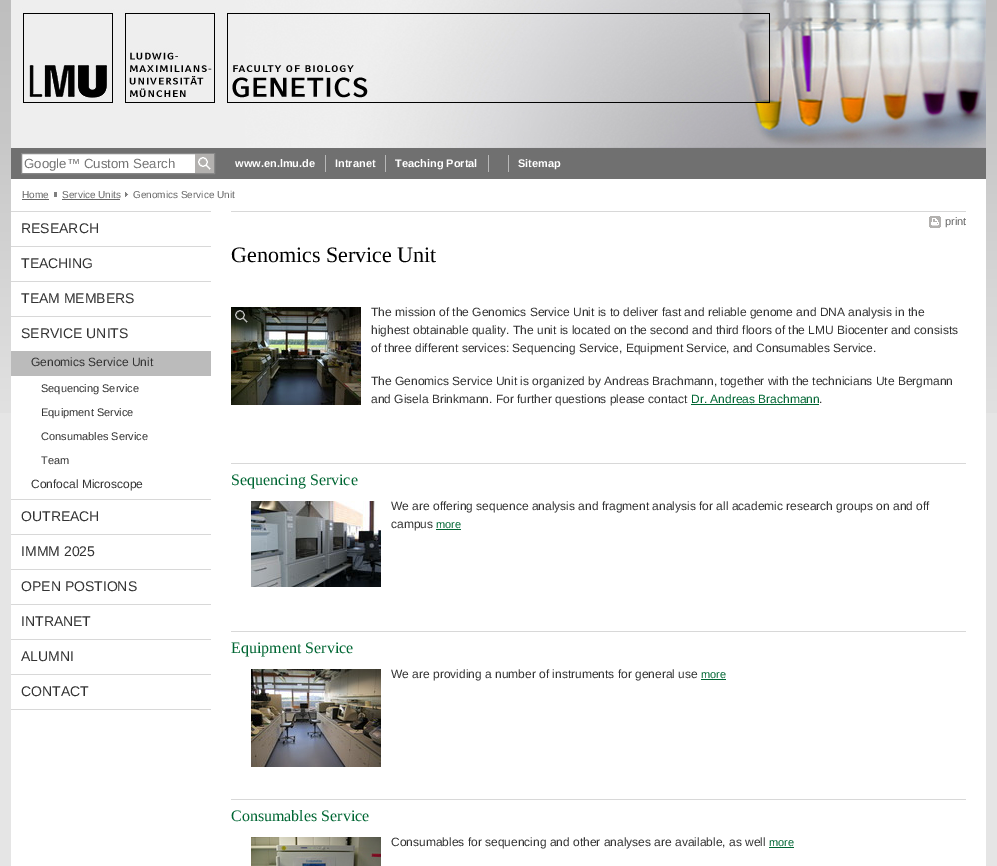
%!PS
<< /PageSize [997 866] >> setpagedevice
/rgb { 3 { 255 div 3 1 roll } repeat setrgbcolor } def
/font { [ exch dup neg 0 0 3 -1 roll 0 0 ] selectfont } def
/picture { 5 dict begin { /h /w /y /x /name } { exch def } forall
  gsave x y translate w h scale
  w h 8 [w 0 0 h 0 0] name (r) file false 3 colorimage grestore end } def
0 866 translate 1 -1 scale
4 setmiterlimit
229 229 229 rgb
0 0 997 866 rectfill
(img/1.rgb) 0 0 997 413 picture
255 255 255 rgb
11 179 975 687 rectfill
(img/2.rgb) 11 0 975 148 picture
(img/3.rgb) 11 148 975 31 picture
22 154 173 19 rectfill
136 136 136 rgb
21.5 153.5 193 20 rectstroke
(img/4.rgb) 195 154 19 19 picture
[
  [325 155 1 17 184 184 184]
  [385 155 1 17 184 184 184]
  [488 155 1 17 184 184 184]
  [508 155 1 17 184 184 184]
  [22 199 27 1 102 102 102]
  [54 192 3 5 127 127 127]
  [62 199 58 1 102 102 102]
] { aload pop rgb rectfill } forall
(img/5.rgb) 125 192 4 5 picture
[
  [11 211 200 1 216 216 216]
  [11 246 200 1 216 216 216]
  [11 281 200 1 216 216 216]
  [11 316 200 1 216 216 216]
  [11 499 200 1 216 216 216]
  [11 351 200 25 187 187 187]
  [11 534 200 1 216 216 216]
  [11 569 200 1 216 216 216]
  [11 604 200 1 216 216 216]
  [11 639 200 1 216 216 216]
  [11 674 200 1 216 216 216]
  [11 709 200 1 216 216 216]
  [231 211 735 1 216 216 216]
] { aload pop rgb rectfill } forall
(img/6.rgb) 929 216 12 12 picture
(img/7.rgb) 231 307 130 98 picture
(img/8.rgb) 234 310 14 13 picture
0 102 51 rgb
691 404 128 1 rectfill
216 216 216 rgb
231 463 735 1 rectfill
(img/9.rgb) 251 501 130 86 picture
0 102 51 rgb
436 529 25 1 rectfill
216 216 216 rgb
231 631 735 1 rectfill
(img/10.rgb) 251 669 130 98 picture
0 102 51 rgb
701 679 25 1 rectfill
216 216 216 rgb
231 799 735 1 rectfill
(img/11.rgb) 251 837 130 29 picture
0 102 51 rgb
769 847 25 1 rectfill
/LiberationSans-Regular 13.25 font
117 117 117 rgb
24 168 moveto (Google™ Custom Search) show
/LiberationSans-Bold 11 font
255 255 255 rgb
[
  [(www.en.lmu.de) 235 167]
  [(Intranet) 335 167]
  [(Teaching Portal) 395 167]
  [(Sitemap) 518 167]
] { aload pop moveto show } forall
/LiberationSans-Regular 10 font
102 102 102 rgb
[
  [(Home) 22 198]
  [(Service Units) 62 198]
  [(Genomics Service Unit) 133 198]
] { aload pop moveto show } forall
/LiberationSans-Regular 14 font
51 51 51 rgb
[
  [(RESEARCH) 21 233]
  [(TEACHING) 21 268]
  [(TEAM MEMBERS) 21 303]
  [(SERVICE UNITS) 21 338]
] { aload pop moveto show } forall
/LiberationSans-Regular 12 font
31 366 moveto (Genomics Service Unit) show
/LiberationSans-Regular 11 font
[
  [(Sequencing Service) 41 392]
  [(Equipment Service) 41 416]
  [(Consumables Service) 41 440]
  [(Team) 41 464]
] { aload pop moveto show } forall
/LiberationSans-Regular 12 font
31 488 moveto (Confocal Microscope) show
/LiberationSans-Regular 14 font
[
  [(OUTREACH) 21 521]
  [(IMMM 2025) 21 556]
  [(OPEN POSTIONS) 21 591]
  [(INTRANET) 21 626]
  [(ALUMNI) 21 661]
  [(CONTACT) 21 696]
] { aload pop moveto show } forall
/LiberationSans-Regular 11 font
102 102 102 rgb
945 225 moveto (print) show
/LiberationSerif-Regular 22 font
0 0 0 rgb
231 262 moveto (Genomics Service Unit) show
/LiberationSans-Regular 12 font
51 51 51 rgb
[
  [(The mission of the Genomics Service Unit is to deliver fast and reliable genome and DNA analysis in the) 371 316]
  [(highest obtainable quality. The unit is located on the second and third floors of the LMU Biocenter and consists) 371 334]
  [(of three different services: Sequencing Service, Equipment Service, and Consumables Service.) 371 352]
  [(The Genomics Service Unit is organized by Andreas Brachmann, together with the technicians Ute Bergmann) 371 385]
  [(and Gisela Brinkmann. For further questions please contact) 371 403]
] { aload pop moveto show } forall
0 102 51 rgb
691 403 moveto (Dr. Andreas Brachmann) show
51 51 51 rgb
819 403 moveto (.) show
/LiberationSerif-Regular 16 font
0 102 51 rgb
231 485 moveto (Sequencing Service) show
/LiberationSans-Regular 12 font
51 51 51 rgb
391 510 moveto (We are offering sequence analysis and fragment analysis for all academic research groups on and off) show
391 528 moveto (campus) show
/LiberationSans-Regular 11 font
0 102 51 rgb
436 528 moveto (more) show
/LiberationSerif-Regular 16 font
231 653 moveto (Equipment Service) show
/LiberationSans-Regular 12 font
51 51 51 rgb
391 678 moveto (We are providing a number of instruments for general use) show
/LiberationSans-Regular 11 font
0 102 51 rgb
701 678 moveto (more) show
/LiberationSerif-Regular 16 font
231 821 moveto (Consumables Service) show
/LiberationSans-Regular 12 font
51 51 51 rgb
391 846 moveto (Consumables for sequencing and other analyses are available, as well) show
/LiberationSans-Regular 11 font
0 102 51 rgb
769 846 moveto (more) show
showpage
